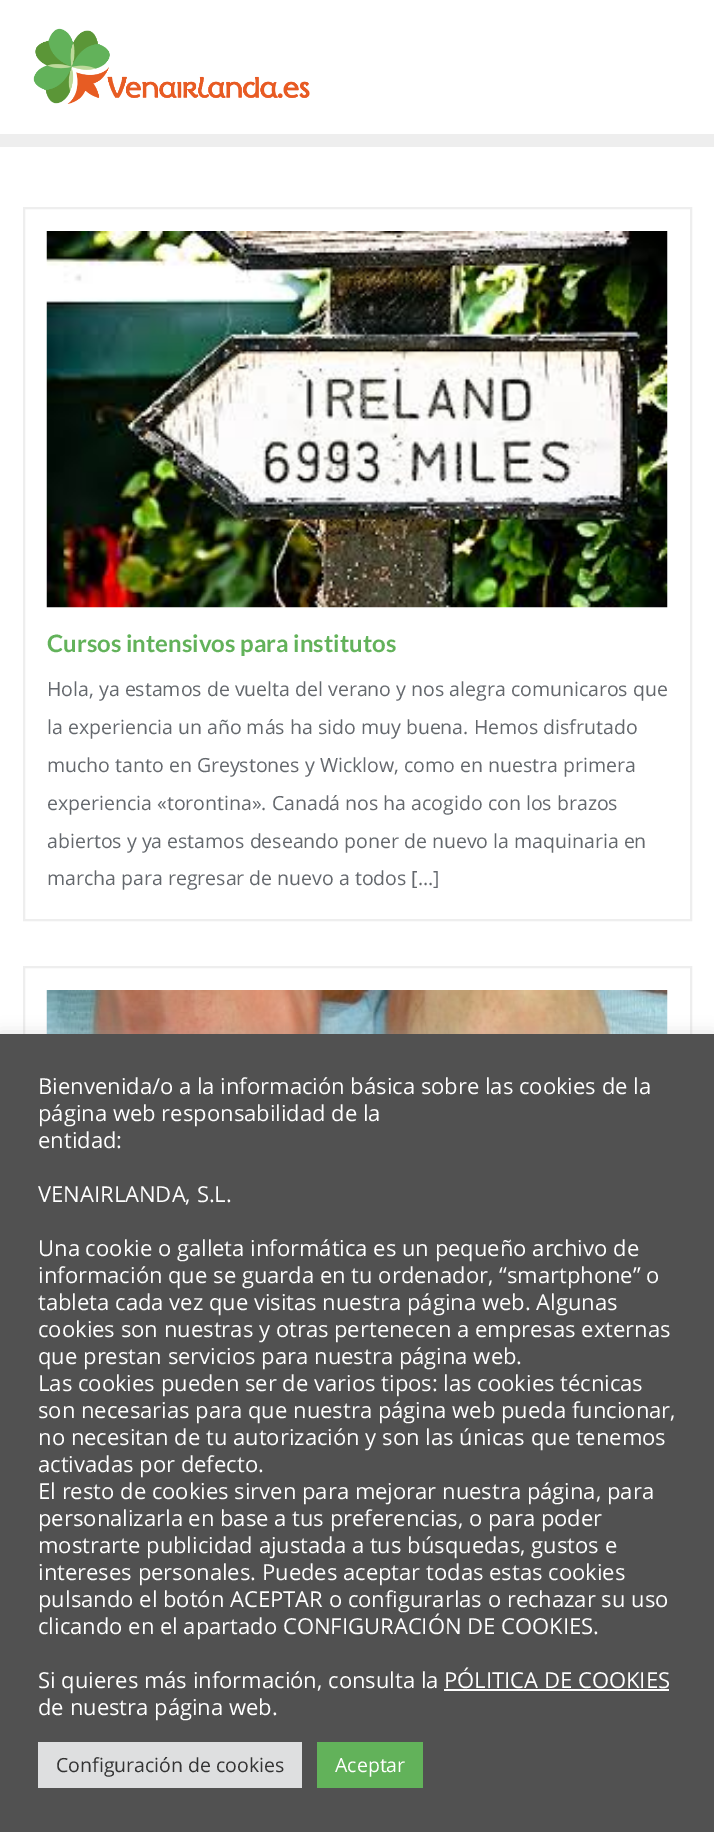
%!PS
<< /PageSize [714 1832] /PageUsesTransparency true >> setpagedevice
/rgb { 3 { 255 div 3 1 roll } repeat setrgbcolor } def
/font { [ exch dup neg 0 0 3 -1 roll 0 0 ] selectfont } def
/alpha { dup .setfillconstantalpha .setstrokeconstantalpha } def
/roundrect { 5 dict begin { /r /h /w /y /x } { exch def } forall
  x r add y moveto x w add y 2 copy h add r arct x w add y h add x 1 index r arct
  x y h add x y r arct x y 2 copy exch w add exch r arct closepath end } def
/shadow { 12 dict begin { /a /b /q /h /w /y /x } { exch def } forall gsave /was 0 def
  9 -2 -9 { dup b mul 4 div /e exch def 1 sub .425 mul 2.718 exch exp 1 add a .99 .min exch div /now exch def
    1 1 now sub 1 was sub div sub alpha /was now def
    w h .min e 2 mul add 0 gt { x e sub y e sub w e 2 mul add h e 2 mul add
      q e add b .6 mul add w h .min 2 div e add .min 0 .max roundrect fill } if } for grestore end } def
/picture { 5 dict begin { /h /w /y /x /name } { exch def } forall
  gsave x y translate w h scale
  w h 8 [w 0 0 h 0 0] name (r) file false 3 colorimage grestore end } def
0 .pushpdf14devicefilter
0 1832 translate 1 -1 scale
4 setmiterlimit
255 255 255 rgb
0 0 714 1832 rectfill
238 238 238 rgb
0 134 714 13 rectfill
(img/1.rgb) 33 28 277 76 picture
2 setlinewidth
24 208 667 712 rectstroke
(img/2.rgb) 46 231 622 377 picture
24 967 667 730 rectstroke
(img/3.rgb) 46 990 622 44 picture
172 171 171 rgb
0 1032 714 800 0 7.5 0.3 shadow
[
  [0 1034 714 798 81 81 81]
  [444 1689 225 2 255 255 255]
  [38 1742 264 46 222 223 224]
  [317 1742 106 46 98 178 90]
] { aload pop rgb rectfill } forall
/Lato-Bold 24 font
47 652 moveto (Cursos intensivos para institutos) show
/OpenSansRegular-Regular 19.5 font
100 104 109 rgb
[
  [(Hola, ya estamos de vuelta del verano y nos alegra comunicaros que) 47 696]
  [(la experiencia un año más ha sido muy buena. Hemos disfrutado) 47 734]
  [(mucho tanto en Greystones y Wicklow, como en nuestra primera) 47 772]
  [(experiencia «torontina». Canadá nos ha acogido con los brazos) 47 810]
  [(abiertos y ya estamos deseando poner de nuevo la maquinaria en) 47 848]
  [(marcha para regresar de nuevo a todos […]) 47 885]
] { aload pop moveto show } forall
/OpenSansRegular-Regular 22 font
255 255 255 rgb
[
  [(Bienvenida/o a la información básica sobre las cookies de la) 38 1094]
  [(página web responsabilidad de la) 38 1121]
  [(entidad:) 38 1148]
  [(VENAIRLANDA, S.L.) 38 1202]
  [(Una cookie o galleta informática es un pequeño archivo de) 38 1256]
  [(información que se guarda en tu ordenador, “smartphone” o) 38 1283]
  [(tableta cada vez que visitas nuestra página web. Algunas) 38 1310]
  [(cookies son nuestras y otras pertenecen a empresas externas) 38 1337]
  [(que prestan servicios para nuestra página web.) 38 1364]
  [(Las cookies pueden ser de varios tipos: las cookies técnicas) 38 1391]
  [(son necesarias para que nuestra página web pueda funcionar,) 38 1418]
  [(no necesitan de tu autorización y son las únicas que tenemos) 38 1445]
  [(activadas por defecto.) 38 1472]
  [(El resto de cookies sirven para mejorar nuestra página, para) 38 1499]
  [(personalizarla en base a tus preferencias, o para poder) 38 1526]
  [(mostrarte publicidad ajustada a tus búsquedas, gustos e) 38 1553]
  [(intereses personales. Puedes aceptar todas estas cookies) 38 1580]
  [(pulsando el botón ACEPTAR o configurarlas o rechazar su uso) 38 1607]
  [(clicando en el apartado CONFIGURACIÓN DE COOKIES.) 38 1634]
  [(Si quieres más información, consulta la PÓLITICA DE COOKIES) 38 1688]
  [(de nuestra página web.) 38 1715]
] { aload pop moveto show } forall
/OpenSansRegular-Regular 19.5 font
51 51 51 rgb
56 1772 moveto (Configuración de cookies) show
255 255 255 rgb
335 1772 moveto (Aceptar) show
.poppdf14devicefilter showpage
